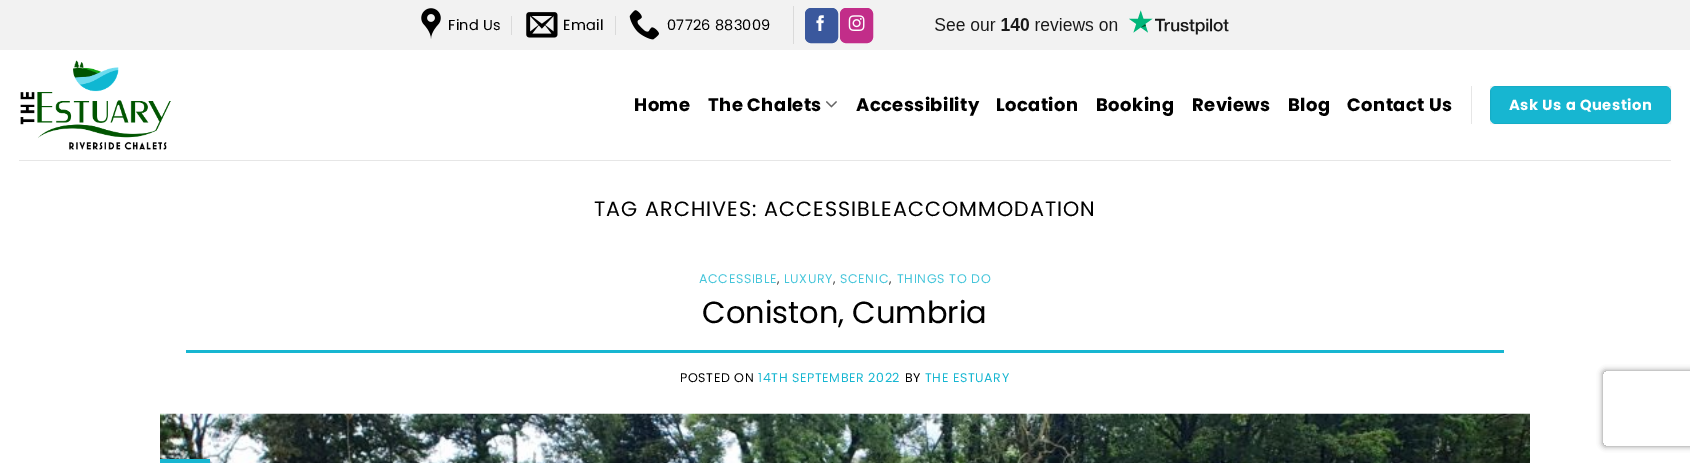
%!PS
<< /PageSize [1690 463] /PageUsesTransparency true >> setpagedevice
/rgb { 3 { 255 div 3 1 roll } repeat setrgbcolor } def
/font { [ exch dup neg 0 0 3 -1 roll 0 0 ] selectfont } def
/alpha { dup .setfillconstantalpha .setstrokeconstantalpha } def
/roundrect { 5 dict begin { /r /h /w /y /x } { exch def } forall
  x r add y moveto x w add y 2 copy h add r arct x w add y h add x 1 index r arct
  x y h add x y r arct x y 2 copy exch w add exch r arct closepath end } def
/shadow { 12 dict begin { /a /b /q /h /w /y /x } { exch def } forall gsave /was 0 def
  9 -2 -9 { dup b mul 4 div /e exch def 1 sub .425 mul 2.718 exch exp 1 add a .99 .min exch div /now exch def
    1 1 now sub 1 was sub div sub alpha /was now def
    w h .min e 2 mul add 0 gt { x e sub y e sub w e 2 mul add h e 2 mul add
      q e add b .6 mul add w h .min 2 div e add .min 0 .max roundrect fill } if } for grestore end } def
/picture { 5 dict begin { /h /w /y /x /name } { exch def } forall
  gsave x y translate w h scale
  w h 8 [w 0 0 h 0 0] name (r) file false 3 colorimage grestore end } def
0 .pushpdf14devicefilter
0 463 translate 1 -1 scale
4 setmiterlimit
255 255 255 rgb
0 0 1690 463 rectfill
242 242 242 rgb
0 0 1690 50 rectfill
(img/1.rgb) 421 8 20 31 picture
218 218 218 rgb
511 16 1 19 rectfill
(img/2.rgb) 526 12 32 26 picture
615 16 1 19 rectfill
(img/3.rgb) 629 10 30 30 picture
793 6 1 38 rectfill
58 88 157 rgb
805.5 8.5 32 34 5.5 roundrect gsave fill grestore
stroke
(img/4.rgb) 816 15 8 16 picture
194 45 137 rgb
840.5 8.5 32 34 5.5 roundrect gsave fill grestore
stroke
(img/5.rgb) 848 15 17 16 picture
(img/6.rgb) 935 10 294 25 picture
(img/7.rgb) 20 60 151 90 picture
(img/8.rgb) 826 101 11 7 picture
230 230 230 rgb
1471 86 1 38 rectfill
23 182 209 rgb
1490 86 181 38 6 roundrect fill
0.05 alpha
0 0 0 rgb
1490.5 86.5 180 37 rectstroke
1 alpha
230 230 230 rgb
19 160 1652 1 rectfill
23 182 209 rgb
186 350 1318 3 rectfill
(img/9.rgb) 160 413 1370 50 picture
160 459 50 4 rectfill
gsave
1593 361 moveto 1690 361 lineto 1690 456 lineto 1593 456 lineto closepath 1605.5 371 moveto 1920.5 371 lineto 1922 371 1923 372 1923 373.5 curveto 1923 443.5 lineto 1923 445 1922 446 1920.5 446 curveto 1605.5 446 lineto 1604 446 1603 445 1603 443.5 curveto 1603 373.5 lineto 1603 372 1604 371 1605.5 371 curveto closepath eoclip newpath
128 128 128 rgb
1603 371 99 75 2.5 3 1 shadow
grestore
/Poppins-Regular 14.5 font
0 0 0 rgb
448 30 moveto 0.25 0 (Find Us) ashow
563 30 moveto 0.25 0 (Email) ashow
667 30 moveto 0.25 0 (07726 883009) ashow
/Poppins-Bold 18 font
634 111 moveto 0.4 0 (Home) ashow
708 111 moveto 0.4 0 (The Chalets) ashow
856 111 moveto 0.4 0 (Accessibility) ashow
996 111 moveto 0.4 0 (Location) ashow
1096 111 moveto 0.4 0 (Booking) ashow
1192 111 moveto 0.4 0 (Reviews) ashow
1288 111 moveto 0.4 0 (Blog) ashow
1347 111 moveto 0.4 0 (Contact Us) ashow
/Poppins-Bold 14.75 font
255 255 255 rgb
1509 110 moveto 0.5 0 (Ask Us a Question) ashow
/Poppins-Regular 20.7 font
0 0 0 rgb
594 216 moveto 1.05 0 (TAG ARCHIVES: ACCESSIBLEACCOMMODATION) ashow
/Poppins-Regular 12.6 font
69 197 218 rgb
699 283 moveto 0.6 0 (ACCESSIBLE) ashow
51 51 51 rgb
777 283 moveto 0.6 0 (,) ashow
69 197 218 rgb
784 283 moveto 0.6 0 (LUXURY) ashow
51 51 51 rgb
833 283 moveto 0.6 0 (,) ashow
69 197 218 rgb
840 283 moveto 0.6 0 (SCENIC) ashow
51 51 51 rgb
889 283 moveto 0.6 0 (,) ashow
69 197 218 rgb
897 283 moveto 0.6 0 (THINGS TO DO) ashow
/Poppins-Regular 30.5 font
0 0 0 rgb
702 323 moveto (Coniston, Cumbria) show
/Poppins-Regular 12.6 font
680 382 moveto 0.6 0 (POSTED ON) ashow
23 182 209 rgb
758 382 moveto 0.6 0 (14TH SEPTEMBER 2022) ashow
0 0 0 rgb
905 382 moveto 0.6 0 (BY) ashow
23 182 209 rgb
925 382 moveto 0.6 0 (THE ESTUARY) ashow
.poppdf14devicefilter showpage
